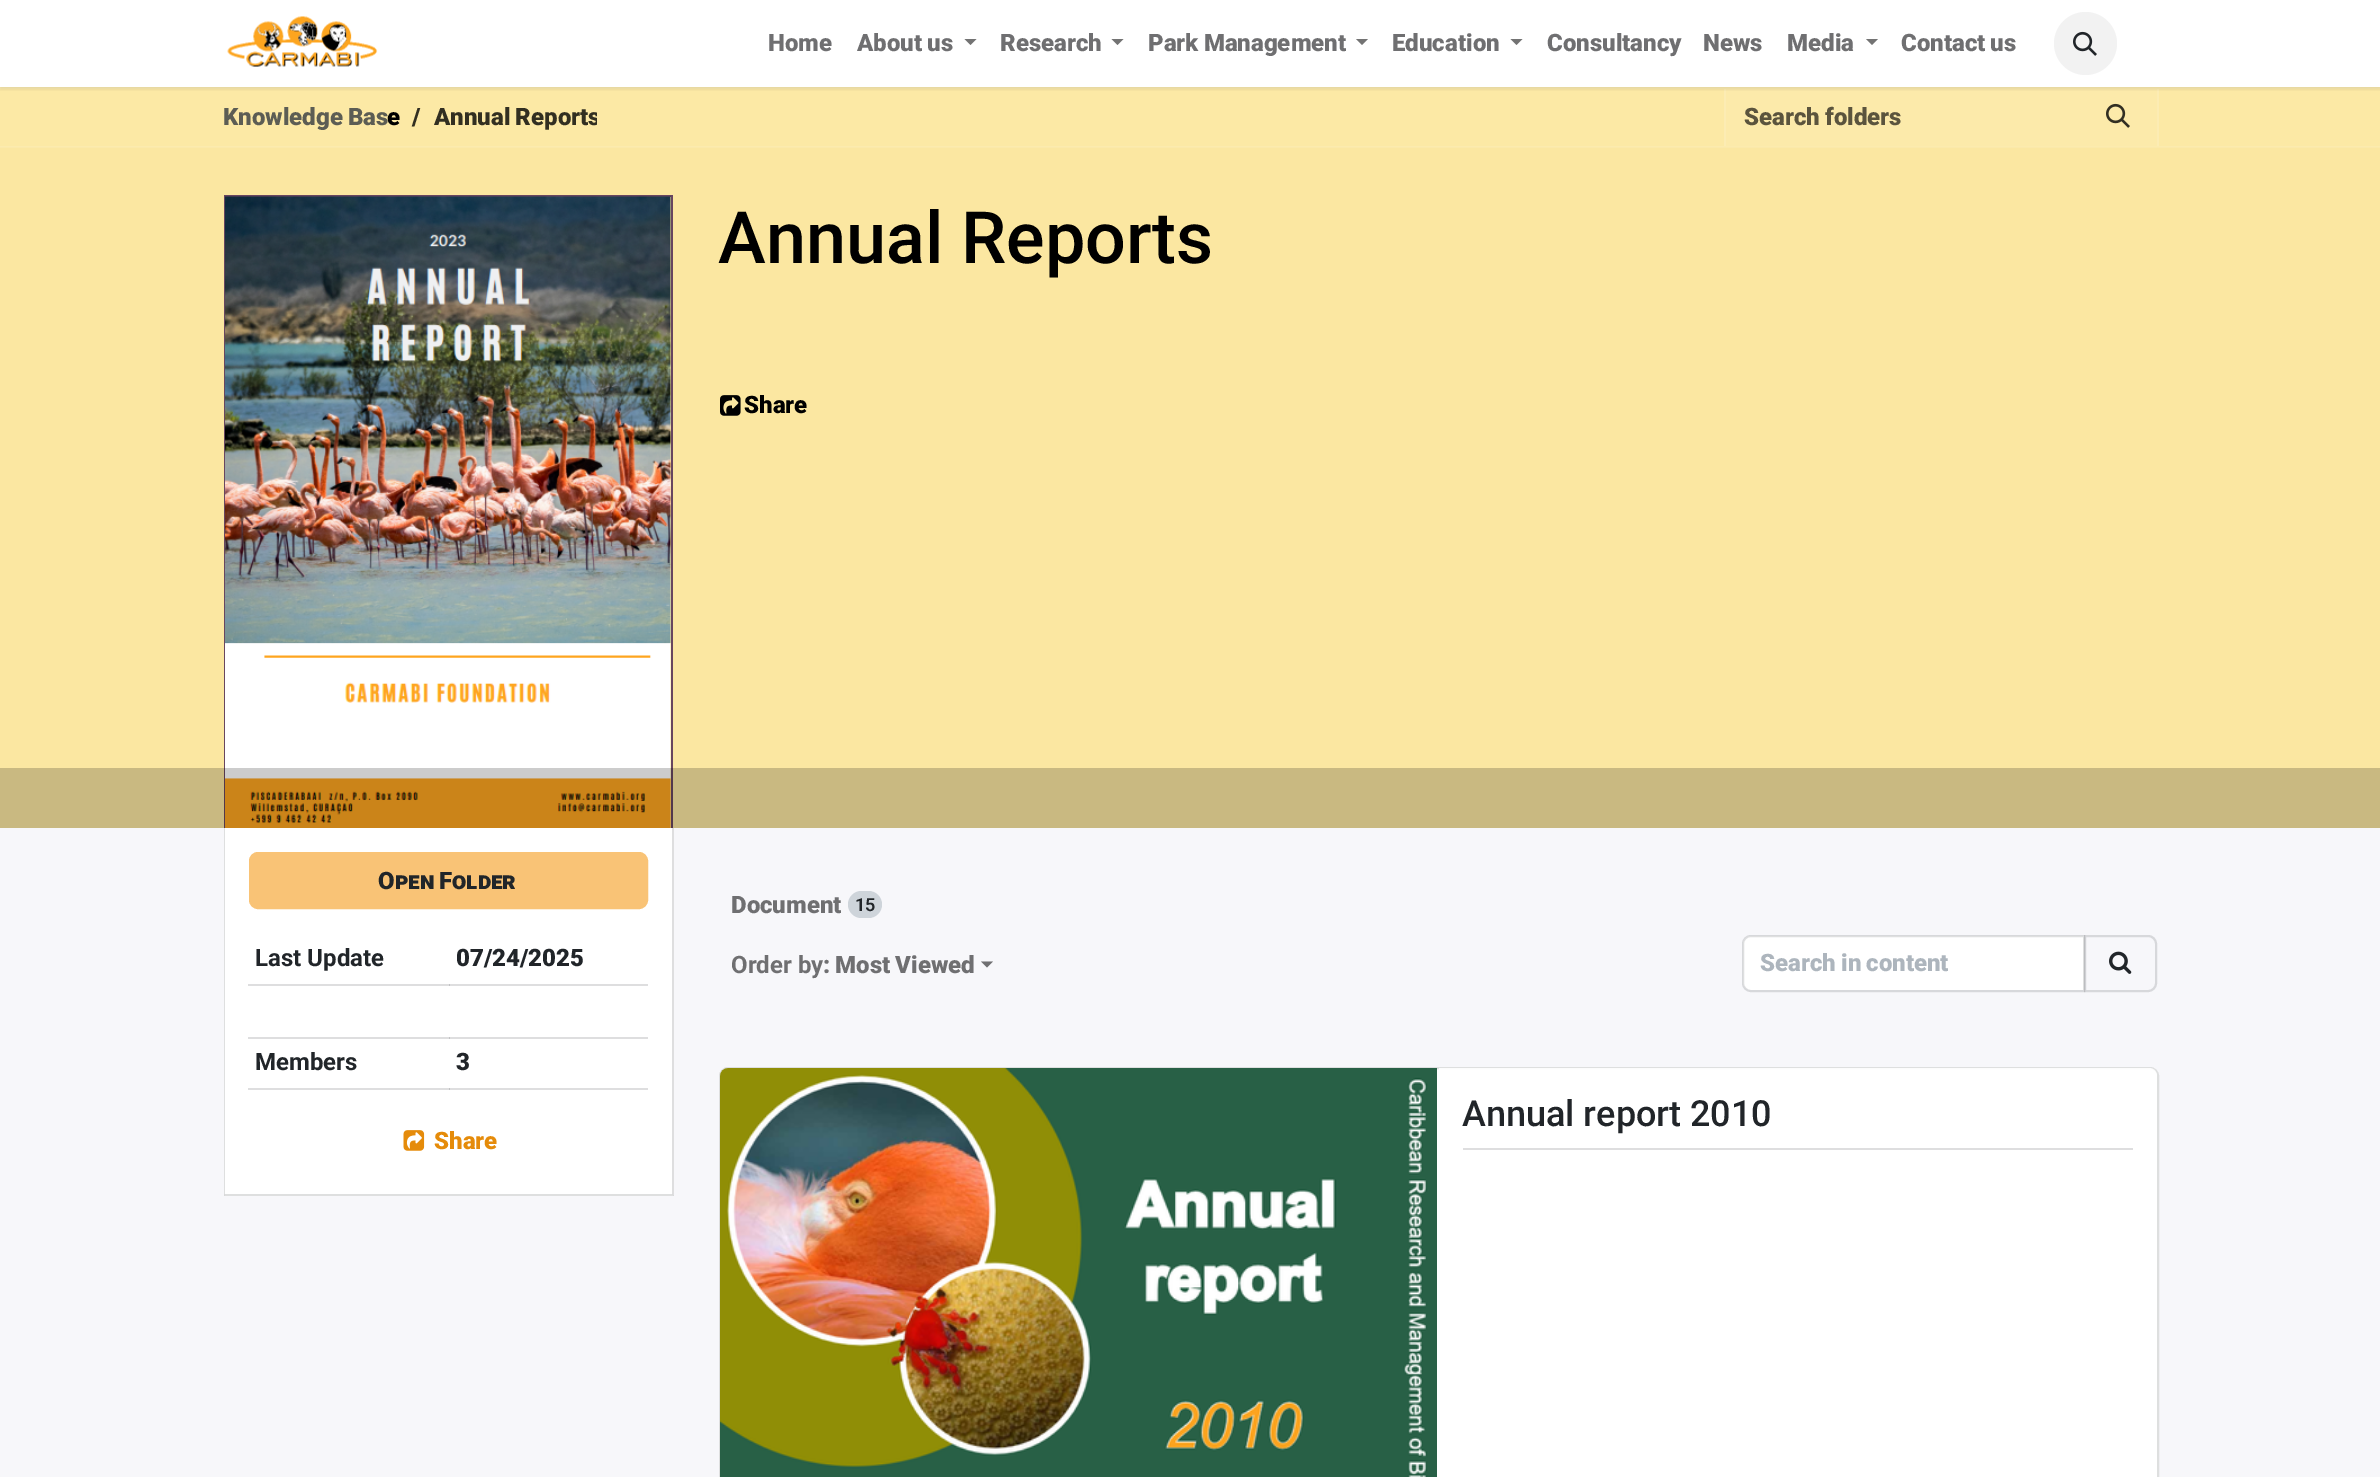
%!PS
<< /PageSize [2380 1477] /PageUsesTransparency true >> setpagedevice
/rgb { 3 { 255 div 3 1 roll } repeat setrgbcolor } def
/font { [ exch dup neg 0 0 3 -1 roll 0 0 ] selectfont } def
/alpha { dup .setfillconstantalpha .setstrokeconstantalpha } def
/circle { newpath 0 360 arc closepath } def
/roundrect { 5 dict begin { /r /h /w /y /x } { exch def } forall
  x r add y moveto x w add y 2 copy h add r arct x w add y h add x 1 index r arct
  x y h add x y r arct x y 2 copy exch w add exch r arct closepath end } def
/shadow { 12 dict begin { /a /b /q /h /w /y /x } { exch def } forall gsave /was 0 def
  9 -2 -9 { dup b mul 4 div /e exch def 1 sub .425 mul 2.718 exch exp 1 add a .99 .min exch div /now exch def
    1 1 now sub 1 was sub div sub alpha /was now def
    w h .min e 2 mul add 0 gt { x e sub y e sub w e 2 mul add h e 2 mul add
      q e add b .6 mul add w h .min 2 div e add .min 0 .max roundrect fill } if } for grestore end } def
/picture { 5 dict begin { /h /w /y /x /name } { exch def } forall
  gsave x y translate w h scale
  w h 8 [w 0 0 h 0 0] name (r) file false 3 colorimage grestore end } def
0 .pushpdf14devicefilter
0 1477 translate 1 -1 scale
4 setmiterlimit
255 255 255 rgb
0 0 2380 1477 rectfill
[
  [0 89 2380 57 252 233 165]
  [0 87 2380 2 252 235 174]
  [1726 89 431 57 252 234 170]
  [2157 89 2 57 252 236 179]
  [1724 89 2 57 252 236 179]
] { aload pop rgb rectfill } forall
gsave
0 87 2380 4 rectclip
0 0 0 rgb
0 2 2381 87 0 2 0.1 shadow
grestore
(img/1.rgb) 227 16 151 51 picture
115 115 115 rgb
964.5 39 moveto 976.5 39 lineto 970.5 45 lineto closepath fill
1111.5 39 moveto 1123.5 39 lineto 1117.5 45 lineto closepath fill
1356 39 moveto 1368 39 lineto 1362 45 lineto closepath fill
1510.5 39 moveto 1522.5 39 lineto 1516.5 45 lineto closepath fill
1866 39 moveto 1878 39 lineto 1872 45 lineto closepath fill
242 242 242 rgb
2085.5 43.5 31.5 circle fill
(img/2.rgb) 2073 31 24 25 picture
[
  [0 828 2380 649 247 247 250]
  [0 148 2380 680 251 231 161]
  [0 147 2380 1 251 233 170]
  [0 146 2380 1 252 235 174]
] { aload pop rgb rectfill } forall
(img/3.rgb) 2106 103 24 25 picture
[
  [224 195 448 2 104 70 95]
  [671 195 2 633 104 70 95]
  [224 195 2 633 104 70 95]
] { aload pop rgb rectfill } forall
(img/4.rgb) 225 196 446 632 picture
(img/5.rgb) 720 395 21 21 picture
0.2 alpha
[
  [0 768 2380 60 0 0 0]
] { aload pop rgb rectfill } forall
1 alpha
[
  [224 828 450 368 255 255 255]
  [248 984 400 2 222 222 223]
  [248 1037 400 2 222 222 223]
  [248 1088 400 2 222 222 223]
] { aload pop rgb rectfill } forall
674 828 moveto 674 1196 lineto 672 1194 lineto 672 828 lineto closepath fill
0.15 alpha
33 37 41 rgb
674 1196 moveto 224 1196 lineto 225 1194 lineto 672 1194 lineto closepath fill
224 1196 moveto 224 828 lineto 225 828 lineto 225 1194 lineto closepath fill
1 alpha
249 195 118 rgb
250 853 397 55 8 roundrect gsave fill grestore
2 setlinewidth
stroke
[
  [449 984 1 2 194 194 196]
  [449 1037 1 2 194 194 196]
  [449 1088 1 2 194 194 196]
] { aload pop rgb rectfill } forall
(img/6.rgb) 403 1130 22 21 picture
206 212 218 rgb
848 891 34 27 13.5 roundrect fill
111 111 113 rgb
981 961.5 moveto 993 961.5 lineto 987 967.5 lineto closepath fill
255 255 255 rgb
1751 936 moveto 2084 936 lineto 2084 990 lineto 1751 990 lineto 1746.5 990 1743 986.5 1743 982 curveto 1743 944 lineto 1743 939.5 1746.5 936 1751 936 curveto closepath fill
0.15 alpha
33 37 41 rgb
1751 936 moveto 2084 936 lineto 2084 991 lineto 1751 991 lineto 1746.5 991 1743 987.5 1743 983 curveto 1743 944 lineto 1743 939.5 1746.5 936 1751 936 curveto closepath stroke
2085 936 moveto 2148 936 lineto 2152.5 936 2156 939.5 2156 944 curveto 2156 983 lineto 2156 987.5 2152.5 991 2148 991 curveto 2085 991 lineto closepath stroke
1 alpha
(img/7.rgb) 2109 951 23 23 picture
255 255 255 rgb
728 1067 moveto 2150 1067 lineto 2155 1067 2159 1071 2159 1076 curveto 2159 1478 lineto 719 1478 lineto 719 1076 lineto 719 1071 723 1067 728 1067 curveto closepath fill
0.15 alpha
33 37 41 rgb
720 1068 1438 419 8 roundrect stroke
1 alpha
(img/8.rgb) 720 1068 717 409 picture
0.9 alpha
255 255 255 rgb
1439 1068 moveto 2149 1068 lineto 2153.5 1068 2157 1071.5 2157 1076 curveto 2157 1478 lineto 1439 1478 lineto closepath fill
1 alpha
222 222 223 rgb
1463 1148 670 2 rectfill
/Roboto-Black 24 font
111 111 113 rgb
768 51 moveto (Home) show
857 51 moveto -1 0 32 (About us) widthshow
1000 51 moveto (Research) show
1148 51 moveto -1 0 32 (Park Management) widthshow
[
  [(Education) 1392 51]
  [(Consultancy) 1547 51]
  [(News) 1703 51]
  [(Media) 1787 51]
] { aload pop moveto show } forall
1901 51 moveto -1 0 32 (Contact us) widthshow
92 93 84 rgb
223 125 moveto -1 0 32 (Knowledge Bas) widthshow
0 0 0 rgb
387 125 moveto (e) show
50 47 33 rgb
412 125 moveto (/) show
gsave
401 99 196 36 rectclip
434 125 moveto -1 0 32 (Annual Reports) widthshow
grestore
91 84 61 rgb
1744 125 moveto -1 0 32 (Search folders) widthshow
/Roboto-Medium 72 font
0 0 0 rgb
718 263 moveto (Annual Reports) show
/Roboto-Black 24 font
744 413 moveto (Share) show
/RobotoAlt-Black 24 font
33 37 41 rgb
378 889 moveto -1 0 32 (Open Folder) widthshow
/Roboto-Bold 24 font
255 966 moveto (Last Update) show
/Roboto-Black 24 font
456 966 moveto (07/24/2025) show
/Roboto-Bold 24 font
255 1070 moveto (Members) show
/Roboto-Black 24 font
456 1070 moveto (3) show
229 139 10 rgb
434 1149 moveto (Share) show
111 111 113 rgb
731 913 moveto (Document) show
/Roboto-SemiBold 18 font
33 37 41 rgb
855 911 moveto (15) show
/Roboto-Bold 24 font
111 111 113 rgb
731 973 moveto (Order by) show
/Roboto-Black 24 font
823 973 moveto (:) show
835 973 moveto -1 0 32 (Most Viewed) widthshow
173 181 189 rgb
1760 971 moveto -1 0 32 (Search in content) widthshow
/Roboto-Medium 36 font
33 37 41 rgb
1462 1126 moveto (Annual report 2010) show
.poppdf14devicefilter showpage
